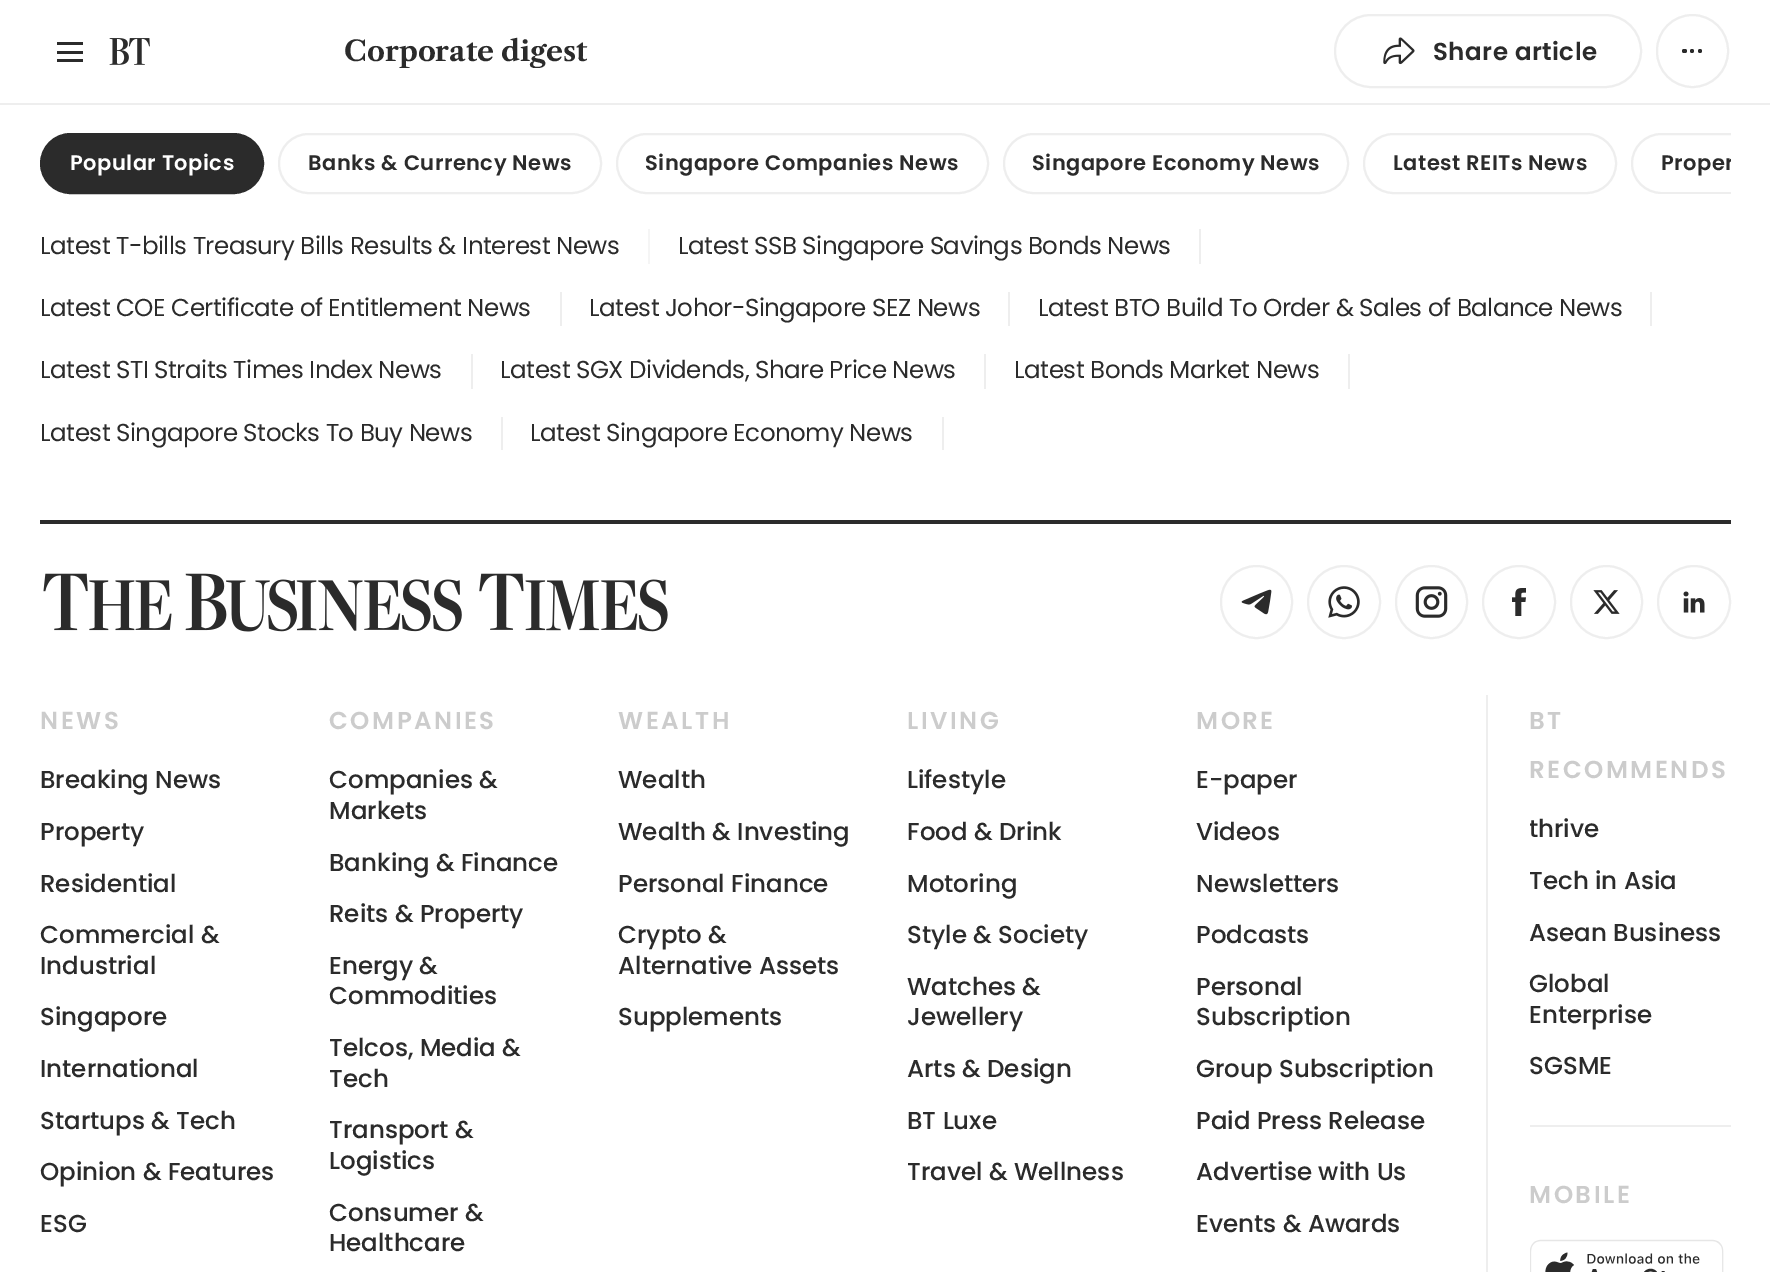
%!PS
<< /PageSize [1770 1272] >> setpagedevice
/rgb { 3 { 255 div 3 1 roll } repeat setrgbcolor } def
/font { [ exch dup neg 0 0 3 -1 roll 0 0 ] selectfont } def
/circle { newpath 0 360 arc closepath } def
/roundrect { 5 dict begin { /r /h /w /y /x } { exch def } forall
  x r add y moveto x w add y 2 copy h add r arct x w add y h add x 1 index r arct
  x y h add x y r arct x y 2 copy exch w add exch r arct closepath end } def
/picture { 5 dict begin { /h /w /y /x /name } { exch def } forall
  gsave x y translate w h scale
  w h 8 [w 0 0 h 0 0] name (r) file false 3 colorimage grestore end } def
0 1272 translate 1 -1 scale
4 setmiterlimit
255 255 255 rgb
0 0 1770 1272 rectfill
[
  [0 103 1770 2 238 238 238]
  [57 42 26 3 43 43 43]
  [57 51 26 3 43 43 43]
  [57 59 26 3 43 43 43]
] { aload pop rgb rectfill } forall
(img/1.rgb) 109 38 41 27 picture
238 238 238 rgb
2 setlinewidth
1335 15 306 72 36 roundrect stroke
(img/2.rgb) 1383 37 32 28 picture
1657 15 71 72 35.5 roundrect stroke
43 43 43 rgb
1682 49 5 4 2 roundrect fill
1692 51 2 circle fill
1700 51 2 circle fill
41 134 222 59 29.5 roundrect gsave fill grestore
stroke
238 238 238 rgb
279 134 322 59 29.5 roundrect stroke
617 134 371 59 29.5 roundrect stroke
1004 134 344 59 29.5 roundrect stroke
1364 134 252 59 29.5 roundrect stroke
gsave
40 133 1691 61 rectclip
1632 134 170 59 29.5 roundrect stroke
grestore
[
  [648 229 2 35 245 245 245]
  [1199 229 2 35 238 238 238]
  [560 292 2 34 238 238 238]
  [1008 292 2 34 238 238 238]
  [1650 292 2 34 238 238 238]
  [471 354 2 35 238 238 238]
  [984 354 2 35 238 238 238]
  [1348 354 2 35 238 238 238]
  [501 417 2 33 238 238 238]
  [942 417 2 33 238 238 238]
  [40 520 1691 4 43 43 43]
] { aload pop rgb rectfill } forall
(img/3.rgb) 43 573 625 59 picture
238 238 238 rgb
1221 566 71 72 35.5 roundrect stroke
(img/4.rgb) 1241 589 31 26 picture
1344 602 36 circle stroke
(img/5.rgb) 1328 586 32 32 picture
1396 566 71 72 35.5 roundrect stroke
(img/6.rgb) 1415 586 33 32 picture
1519 602 36 circle stroke
(img/7.rgb) 1512 588 14 28 picture
1571 566 71 72 35.5 roundrect stroke
(img/8.rgb) 1593 590 27 24 picture
1694 602 36 circle stroke
(img/9.rgb) 1683 591 22 22 picture
1486 695 2 577 rectfill
1530 1125 201 2 rectfill
(img/10.rgb) 1530 1239 194 33 picture
gsave
345 33 700 35 rectclip
/LibreCaslonText-Bold 28 font
43 43 43 rgb
344 61 moveto (Corporate digest) show
grestore
/Poppins-SemiBold 24.5 font
43 43 43 rgb
1433 60 moveto 0.5 0 (Share article) ashow
/Poppins-SemiBold 21 font
255 255 255 rgb
70 170 moveto 0.5 0 (Popular Topics) ashow
43 43 43 rgb
308 170 moveto 0.5 0 (Banks & Currency News) ashow
645 170 moveto 0.5 0 (Singapore Companies News) ashow
1032 170 moveto 0.5 0 (Singapore Economy News) ashow
1393 170 moveto 0.5 0 (Latest REITs News) ashow
gsave
40 133 1691 61 rectclip
1661 170 moveto 0.5 0 (Proper) ashow
grestore
/Poppins-Regular 24.5 font
40 254 moveto -0.5 0 (Latest T-bills Treasury Bills Results & Interest News) ashow
678 254 moveto -0.5 0 (Latest SSB Singapore Savings Bonds News) ashow
40 316 moveto -0.5 0 (Latest COE Certificate of Entitlement News) ashow
589 316 moveto -0.5 0 (Latest Johor-Singapore SEZ News) ashow
1038 316 moveto -0.5 0 (Latest BTO Build To Order & Sales of Balance News) ashow
40 378 moveto -0.5 0 (Latest STI Straits Times Index News) ashow
500 378 moveto -0.5 0 (Latest SGX Dividends, Share Price News) ashow
1014 378 moveto -0.5 0 (Latest Bonds Market News) ashow
40 441 moveto -0.5 0 (Latest Singapore Stocks To Buy News) ashow
530 441 moveto -0.5 0 (Latest Singapore Economy News) ashow
/Poppins-SemiBold 24.5 font
204 204 204 rgb
40 729 moveto 2.5 0 (NEWS) ashow
/Poppins-Medium 24.5 font
43 43 43 rgb
[
  [(Breaking News) 40 788]
  [(Property) 40 840]
  [(Residential) 40 892]
  [(Commercial &) 40 943]
  [(Industrial) 40 974]
  [(Singapore) 40 1025]
  [(International) 40 1077]
  [(Startups & Tech) 40 1129]
  [(Opinion & Features) 40 1180]
  [(ESG) 40 1232]
] { aload pop moveto show } forall
/Poppins-SemiBold 24.5 font
204 204 204 rgb
329 729 moveto 2.5 0 (COMPANIES) ashow
/Poppins-Medium 24.5 font
43 43 43 rgb
[
  [(Companies &) 329 788]
  [(Markets) 329 819]
  [(Banking & Finance) 329 871]
  [(Reits & Property) 329 922]
  [(Energy &) 329 974]
  [(Commodities) 329 1004]
  [(Telcos, Media &) 329 1056]
  [(Tech) 329 1087]
  [(Transport &) 329 1138]
  [(Logistics) 329 1169]
  [(Consumer &) 329 1221]
  [(Healthcare) 329 1251]
] { aload pop moveto show } forall
/Poppins-SemiBold 24.5 font
204 204 204 rgb
618 729 moveto 2.5 0 (WEALTH) ashow
/Poppins-Medium 24.5 font
43 43 43 rgb
[
  [(Wealth) 618 788]
  [(Wealth & Investing) 618 840]
  [(Personal Finance) 618 892]
  [(Crypto &) 618 943]
  [(Alternative Assets) 618 974]
  [(Supplements) 618 1025]
] { aload pop moveto show } forall
/Poppins-SemiBold 24.5 font
204 204 204 rgb
907 729 moveto 2.5 0 (LIVING) ashow
/Poppins-Medium 24.5 font
43 43 43 rgb
[
  [(Lifestyle) 907 788]
  [(Food & Drink) 907 840]
  [(Motoring) 907 892]
  [(Style & Society) 907 943]
  [(Watches &) 907 995]
  [(Jewellery) 907 1025]
  [(Arts & Design) 907 1077]
  [(BT Luxe) 907 1129]
  [(Travel & Wellness) 907 1180]
] { aload pop moveto show } forall
/Poppins-SemiBold 24.5 font
204 204 204 rgb
1196 729 moveto 2.5 0 (MORE) ashow
/Poppins-Medium 24.5 font
43 43 43 rgb
[
  [(E-paper) 1196 788]
  [(Videos) 1196 840]
  [(Newsletters) 1196 892]
  [(Podcasts) 1196 943]
  [(Personal) 1196 995]
  [(Subscription) 1196 1025]
  [(Group Subscription) 1196 1077]
  [(Paid Press Release) 1196 1129]
  [(Advertise with Us) 1196 1180]
  [(Events & Awards) 1196 1232]
] { aload pop moveto show } forall
/Poppins-SemiBold 24.5 font
204 204 204 rgb
1529 729 moveto 2.5 0 (BT) ashow
1529 778 moveto 2.5 0 (RECOMMENDS) ashow
gsave
1530 793 201 290 rectclip
/Poppins-Medium 24.5 font
43 43 43 rgb
1529 837 moveto (thrive) show
grestore
/Poppins-Medium 24.5 font
43 43 43 rgb
[
  [(Tech in Asia) 1529 889]
  [(Asean Business) 1529 941]
  [(Global) 1529 992]
  [(Enterprise) 1529 1023]
  [(SGSME) 1529 1074]
] { aload pop moveto show } forall
/Poppins-SemiBold 24.5 font
204 204 204 rgb
1529 1203 moveto 2.5 0 (MOBILE) ashow
showpage
